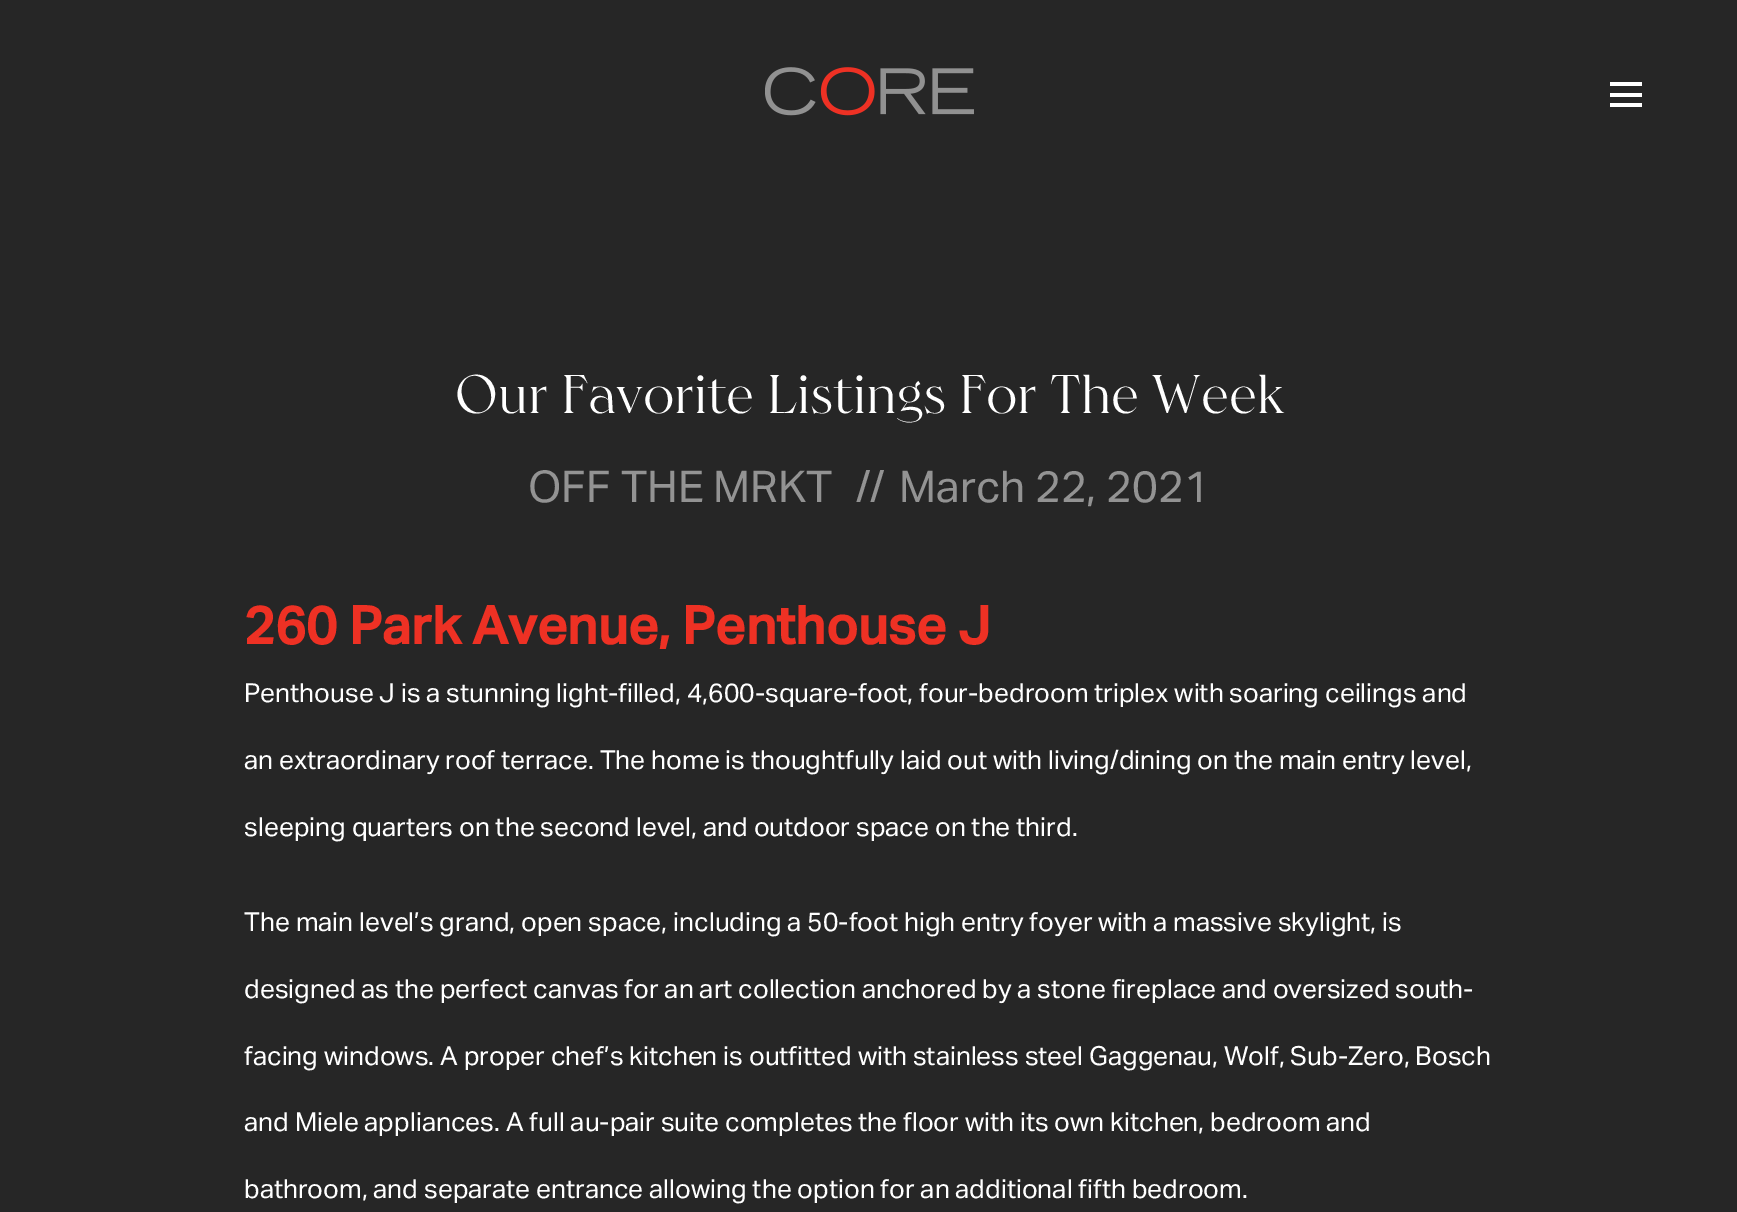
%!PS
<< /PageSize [1737 1212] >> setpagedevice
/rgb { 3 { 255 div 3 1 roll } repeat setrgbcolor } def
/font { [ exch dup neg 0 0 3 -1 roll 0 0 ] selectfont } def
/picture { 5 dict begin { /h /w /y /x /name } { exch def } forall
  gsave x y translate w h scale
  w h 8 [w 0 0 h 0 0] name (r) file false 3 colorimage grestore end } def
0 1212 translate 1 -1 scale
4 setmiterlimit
38 38 38 rgb
0 0 1737 1212 rectfill
(img/1.rgb) 765 67 209 49 picture
[
  [1610 82 32 4 255 255 255]
  [1610 93 32 4 255 255 255]
  [1610 103 32 4 255 255 255]
] { aload pop rgb rectfill } forall
/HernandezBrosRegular-Regular 52.5 font
455 413 moveto (Our Favorite Listings For The Week) show
/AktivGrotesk-Regular 43.75 font
147 147 147 rgb
[
  [(OFF THE MRKT) 528 502]
  [(//) 856 502]
  [(March 22, 2021) 899 502]
] { aload pop moveto show } forall
/AktivGrotesk-Bold 52.5 font
238 49 36 rgb
244 644 moveto (260 Park Avenue, Penthouse J) show
/AktivGrotesk-Regular 26.25 font
255 255 255 rgb
[
  [(Penthouse J is a stunning light-filled, 4,600-square-foot, four-bedroom triplex with soaring ceilings and) 244 702]
  [(an extraordinary roof terrace. The home is thoughtfully laid out with living/dining on the main entry level,) 244 769]
  [(sleeping quarters on the second level, and outdoor space on the third.) 244 836]
  [(The main level’s grand, open space, including a 50-foot high entry foyer with a massive skylight, is) 244 931]
  [(designed as the perfect canvas for an art collection anchored by a stone fireplace and oversized south-) 244 998]
  [(facing windows. A proper chef’s kitchen is outfitted with stainless steel Gaggenau, Wolf, Sub-Zero, Bosch) 244 1065]
  [(and Miele appliances. A full au-pair suite completes the floor with its own kitchen, bedroom and) 244 1131]
  [(bathroom, and separate entrance allowing the option for an additional fifth bedroom.) 244 1198]
] { aload pop moveto show } forall
showpage
